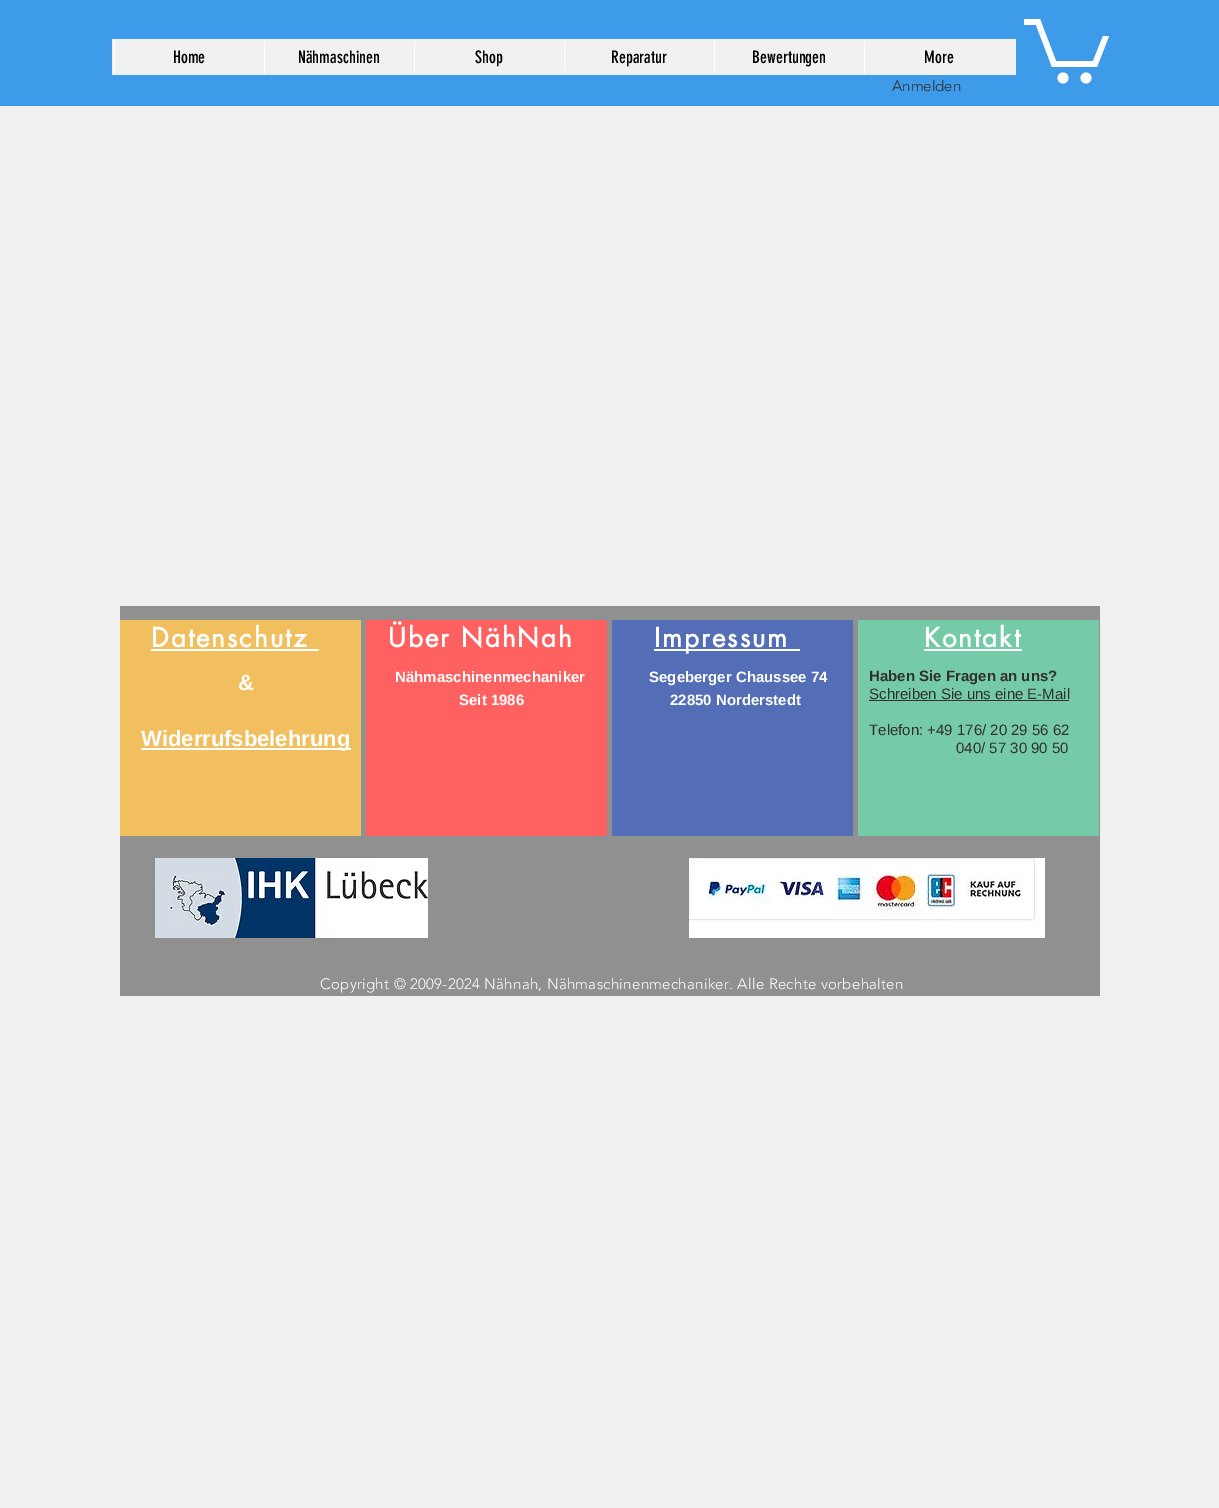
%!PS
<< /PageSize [1219 1508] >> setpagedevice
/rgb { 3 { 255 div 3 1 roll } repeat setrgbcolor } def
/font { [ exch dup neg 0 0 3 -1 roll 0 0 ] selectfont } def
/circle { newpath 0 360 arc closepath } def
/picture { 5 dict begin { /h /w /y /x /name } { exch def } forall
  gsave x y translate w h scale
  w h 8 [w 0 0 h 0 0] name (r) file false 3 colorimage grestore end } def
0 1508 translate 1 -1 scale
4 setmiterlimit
240 240 240 rgb
0 0 1219 1508 rectfill
[
  [0 0 1219 106 61 155 233]
  [112 39 904 36 241 241 241]
  [114 39 1 36 255 255 255]
  [264 39 1 36 255 255 255]
  [414 39 1 36 255 255 255]
  [564 39 1 36 255 255 255]
  [714 39 1 36 255 255 255]
  [864 39 1 36 255 255 255]
] { aload pop rgb rectfill } forall
1109 36 moveto 1097 67 lineto 1052 67 lineto 1036 25 lineto 1024 25 lineto 1024 19 lineto 1040 19 lineto 1056 61 lineto 1093 61 lineto 1103 36 lineto fill
1086 78 5.5 circle fill
1063 78 5.5 circle fill
[
  [120 606 980 390 144 144 144]
  [120 620 241 216 242 191 94]
  [151 649 168 2 255 255 255]
  [141 748 210 2 255 255 255]
  [366 620 241 216 255 97 97]
  [612 620 241 216 83 110 183]
  [654 649 146 2 255 255 255]
  [858 620 241 216 117 203 168]
  [924 649 98 2 255 255 255]
  [869 700 200 1 48 48 48]
] { aload pop rgb rectfill } forall
(img/1.rgb) 155 858 273 80 picture
(img/2.rgb) 689 858 356 80 picture
/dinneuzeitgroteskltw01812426-Regular 17 font
0 0 0 rgb
[
  [(Home) 173 63]
  [(Nähmaschinen) 298 63]
  [(Shop) 475 63]
  [(Reparatur) 611 63]
  [(Bewertungen) 752 63]
  [(More) 924 63]
] { aload pop moveto show } forall
/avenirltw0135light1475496-Light 15 font
48 48 48 rgb
892 91 moveto (Anmelden) show
/futura-Bold 26 font
255 255 255 rgb
151 647 moveto 2 0 (Datenschutz) ashow
/LiberationSans-Bold 22 font
238 690 moveto (&) show
141 746 moveto (Widerrufsbelehrung) show
/futura-Bold 26 font
388 647 moveto 2 0 (Über NähNah) ashow
/LiberationSans-Bold 15 font
395 682 moveto (Nähmaschinenmechaniker) show
459 705 moveto (Seit 1986) show
/futura-Bold 26 font
654 647 moveto 2 0 (Impressum) ashow
/LiberationSans-Bold 15 font
649 682 moveto (Segeberger Chaussee 74) show
670 705 moveto (22850 Norderstedt) show
/futura-Bold 26 font
924 647 moveto 2 0 (Kontakt) ashow
/LiberationSans-Bold 15 font
48 48 48 rgb
869 681 moveto (Haben Sie Fragen an uns?) show
/LiberationSans-Regular 15 font
[
  [(Schreiben Sie uns eine E-Mail) 869 699]
  [(Telefon: +49 176/ 20 29 56 62) 869 735]
  [(040/ 57 30 90 50) 956 753]
] { aload pop moveto show } forall
/avenirltw0135light1475496-Light 15 font
255 255 255 rgb
320 989 moveto 0.3 0 (Copyright © 2009-2024 Nähnah, Nähmaschinenmechaniker. Alle Rechte vorbehalten) ashow
showpage
